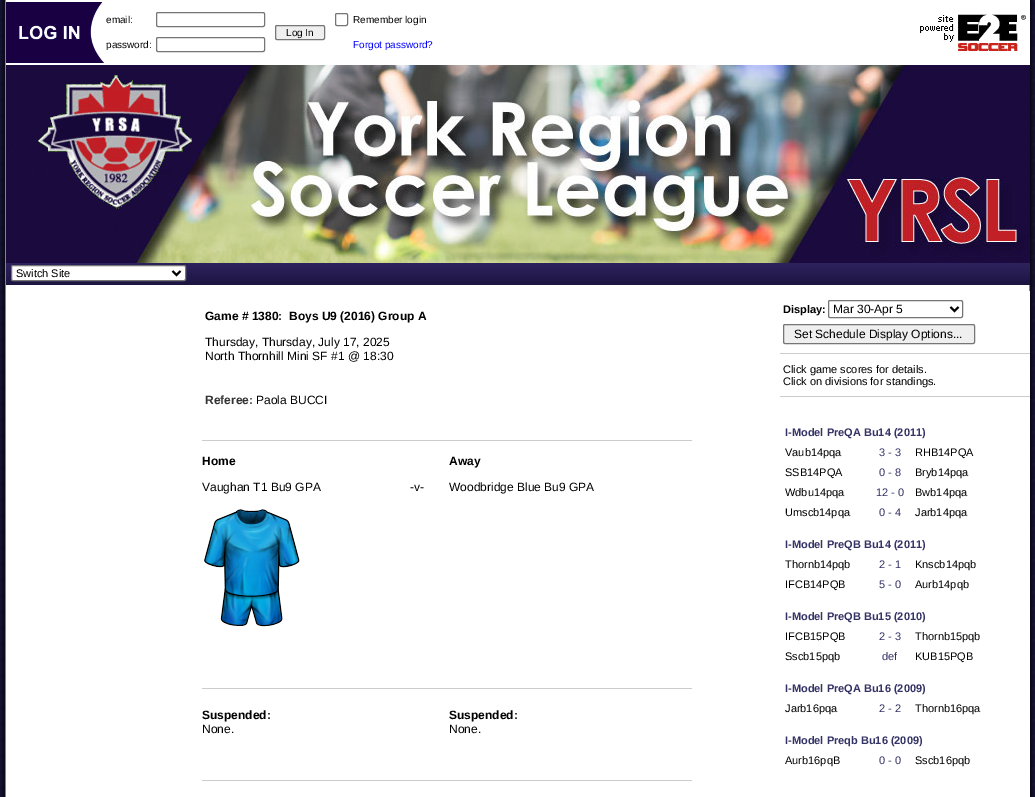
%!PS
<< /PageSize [1035 797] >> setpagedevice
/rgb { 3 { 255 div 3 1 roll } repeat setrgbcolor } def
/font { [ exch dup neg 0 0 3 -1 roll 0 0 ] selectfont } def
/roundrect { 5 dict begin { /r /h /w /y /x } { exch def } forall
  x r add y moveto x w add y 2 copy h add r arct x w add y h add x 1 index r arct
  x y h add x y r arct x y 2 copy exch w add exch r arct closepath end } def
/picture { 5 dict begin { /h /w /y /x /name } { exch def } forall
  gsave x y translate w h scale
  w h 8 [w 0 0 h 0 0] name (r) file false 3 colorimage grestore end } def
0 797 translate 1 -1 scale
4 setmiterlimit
255 255 255 rgb
0 0 1035 797 rectfill
(img/1.rgb) 0 0 1035 797 picture
9 0 1021 65 rectfill
(img/2.rgb) 6 2 98 61 picture
118 118 118 rgb
156.5 12.5 108 14 1.5 roundrect stroke
335.5 13.5 12 12 1.5 roundrect stroke
239 239 239 rgb
275.5 25.5 49 14 1.5 roundrect gsave fill grestore
118 118 118 rgb
stroke
156.5 37.5 108 14 1.5 roundrect stroke
(img/3.rgb) 920 14 106 37 picture
(img/4.rgb) 6 65 1024 198 picture
(img/5.rgb) 38 75 154 134 picture
(img/6.rgb) 6 263 1024 22 picture
255 255 255 rgb
11.5 265.5 174 15 1.5 roundrect gsave fill grestore
118 118 118 rgb
stroke
0 0 0 rgb
2 setlinewidth
172.5 271 moveto 176.5 275 lineto 180.5 271 lineto stroke
255 255 255 rgb
9 291 1021 506 rectfill
204 204 204 rgb
202 440 490 1 rectfill
(img/7.rgb) 204 509 96 118 picture
202 688 490 1 rectfill
202 780 490 1 rectfill
118 118 118 rgb
1 setlinewidth
828.5 300.5 134 17 1.5 roundrect stroke
0 0 0 rgb
2 setlinewidth
950.5 307 moveto 954.5 311 lineto 958.5 307 lineto stroke
239 239 239 rgb
783.5 324.5 191 19 1.5 roundrect gsave fill grestore
118 118 118 rgb
1 setlinewidth
stroke
204 204 204 rgb
780 353 250 1 rectfill
780 396 250 1 rectfill
/LiberationSans-Regular 10 font
0 0 0 rgb
[
  [(email:) 106 23]
  [(Remember login) 353 23]
  [(Log In) 286 36]
  [(password:) 106 48]
] { aload pop moveto show } forall
0 0 255 rgb
353 48 moveto (Forgot password?) show
/LiberationSans-Regular 11 font
0 0 0 rgb
16 277 moveto (Switch Site) show
/LiberationSans-Bold 12 font
205 320 moveto (Game # 1380:) show
289 320 moveto (Boys U9 \(2016\) Group A) show
/LiberationSans-Regular 12 font
205 346 moveto (Thursday, Thursday, July 17, 2025) show
205 360 moveto (North Thornhill Mini SF #1 @ 18:30) show
/LiberationSans-Bold 12 font
51 51 51 rgb
205 404 moveto (Referee:) show
/LiberationSans-Regular 12 font
0 0 0 rgb
256 404 moveto (Paola BUCCI) show
/LiberationSans-Bold 12 font
202 465 moveto (Home) show
/LiberationSans-Regular 12 font
202 491 moveto (Vaughan T1 Bu9 GPA) show
410 491 moveto (-v-) show
/LiberationSans-Bold 12 font
449 465 moveto (Away) show
/LiberationSans-Regular 12 font
449 491 moveto (Woodbridge Blue Bu9 GPA) show
/LiberationSans-Bold 12 font
202 719 moveto (Suspended:) show
/LiberationSans-Regular 12 font
202 733 moveto (None.) show
/LiberationSans-Bold 12 font
449 719 moveto (Suspended:) show
/LiberationSans-Regular 12 font
449 733 moveto (None.) show
/LiberationSans-Bold 11 font
783 313 moveto (Display:) show
/LiberationSans-Regular 12 font
833 313 moveto (Mar 30-Apr 5) show
794 338 moveto (Set Schedule Display Options...) show
/LiberationSans-Regular 11 font
783 373 moveto (Click game scores for details.) show
783 385 moveto (Click on divisions for standings.) show
/LiberationSans-Bold 11 font
51 51 102 rgb
785 436 moveto (I-Model PreQA Bu14 \(2011\)) show
/LiberationSans-Regular 11 font
0 0 0 rgb
785 456 moveto (Vaub14pqa) show
51 51 102 rgb
879 456 moveto (3 - 3) show
0 0 0 rgb
915 456 moveto (RHB14PQA) show
785 476 moveto (SSB14PQA) show
51 51 102 rgb
879 476 moveto (0 - 8) show
0 0 0 rgb
915 476 moveto (Bryb14pqa) show
785 496 moveto (Wdbu14pqa) show
51 51 102 rgb
876 496 moveto (12 - 0) show
0 0 0 rgb
915 496 moveto (Bwb14pqa) show
785 516 moveto (Umscb14pqa) show
51 51 102 rgb
879 516 moveto (0 - 4) show
0 0 0 rgb
915 516 moveto (Jarb14pqa) show
/LiberationSans-Bold 11 font
51 51 102 rgb
785 548 moveto (I-Model PreQB Bu14 \(2011\)) show
/LiberationSans-Regular 11 font
0 0 0 rgb
785 568 moveto (Thornb14pqb) show
51 51 102 rgb
879 568 moveto (2 - 1) show
0 0 0 rgb
915 568 moveto (Knscb14pqb) show
785 588 moveto (IFCB14PQB) show
51 51 102 rgb
879 588 moveto (5 - 0) show
0 0 0 rgb
915 588 moveto (Aurb14pqb) show
/LiberationSans-Bold 11 font
51 51 102 rgb
785 620 moveto (I-Model PreQB Bu15 \(2010\)) show
/LiberationSans-Regular 11 font
0 0 0 rgb
785 640 moveto (IFCB15PQB) show
51 51 102 rgb
879 640 moveto (2 - 3) show
0 0 0 rgb
915 640 moveto (Thornb15pqb) show
785 660 moveto (Sscb15pqb) show
51 51 102 rgb
882 660 moveto (def) show
0 0 0 rgb
915 660 moveto (KUB15PQB) show
/LiberationSans-Bold 11 font
51 51 102 rgb
785 692 moveto (I-Model PreQA Bu16 \(2009\)) show
/LiberationSans-Regular 11 font
0 0 0 rgb
785 712 moveto (Jarb16pqa) show
51 51 102 rgb
879 712 moveto (2 - 2) show
0 0 0 rgb
915 712 moveto (Thornb16pqa) show
/LiberationSans-Bold 11 font
51 51 102 rgb
785 744 moveto (I-Model Preqb Bu16 \(2009\)) show
/LiberationSans-Regular 11 font
0 0 0 rgb
785 764 moveto (Aurb16pqB) show
51 51 102 rgb
879 764 moveto (0 - 0) show
0 0 0 rgb
915 764 moveto (Sscb16pqb) show
showpage
